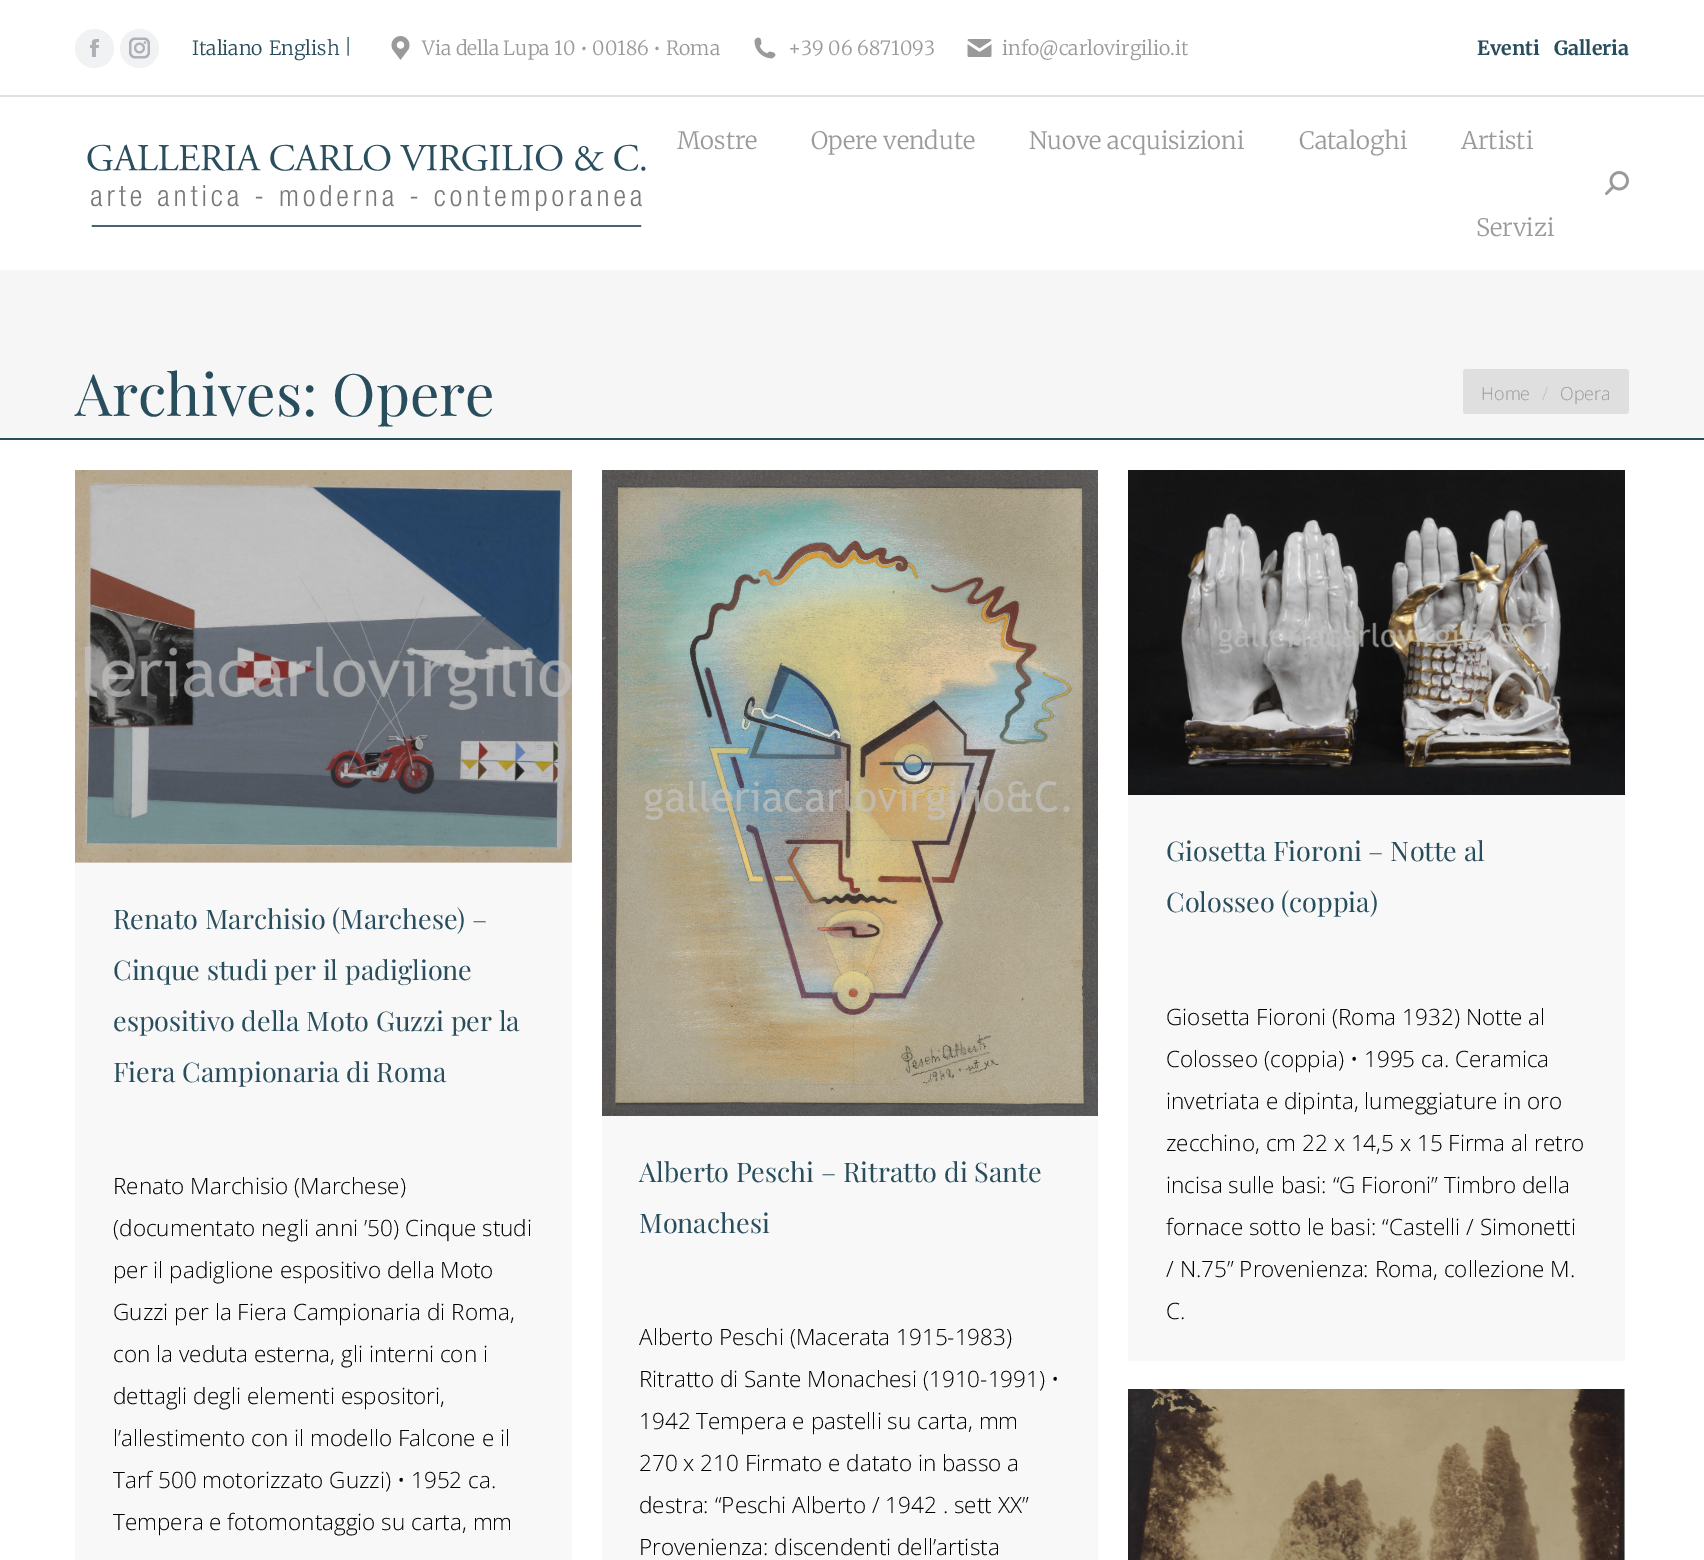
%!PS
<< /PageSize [1704 1560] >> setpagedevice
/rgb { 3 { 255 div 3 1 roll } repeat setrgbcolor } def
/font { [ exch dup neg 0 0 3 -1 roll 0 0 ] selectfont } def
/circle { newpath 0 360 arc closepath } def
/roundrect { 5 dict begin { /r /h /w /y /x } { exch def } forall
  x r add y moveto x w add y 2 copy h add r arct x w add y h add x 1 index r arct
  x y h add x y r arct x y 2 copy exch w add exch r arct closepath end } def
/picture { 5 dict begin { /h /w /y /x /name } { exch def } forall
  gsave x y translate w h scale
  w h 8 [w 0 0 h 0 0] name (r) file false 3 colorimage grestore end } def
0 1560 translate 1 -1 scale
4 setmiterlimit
255 255 255 rgb
0 0 1704 1560 rectfill
241 242 243 rgb
94.5 48.5 19.5 circle fill
(img/1.rgb) 90 39 9 18 picture
139.5 48.5 19.5 circle fill
(img/2.rgb) 129 37 21 22 picture
(img/3.rgb) 391 36 19 24 picture
(img/4.rgb) 754 37 22 22 picture
(img/5.rgb) 967 39 25 18 picture
225 225 225 rgb
0 95 1704 2 rectfill
(img/6.rgb) 87 144 559 83 picture
(img/7.rgb) 1605 171 24 24 picture
246 246 246 rgb
0 270 1704 168 rectfill
40 77 92 rgb
0 438 1704 2 rectfill
223 223 223 rgb
1463 369 166 45 3 roundrect fill
248 248 249 rgb
75 862 497 698 rectfill
(img/8.rgb) 75 470 497 393 picture
602 1115 496 445 rectfill
(img/9.rgb) 602 470 496 646 picture
1128 795 497 566 rectfill
(img/10.rgb) 1128 470 497 325 picture
1624 1389 1 171 rectfill
(img/11.rgb) 1128 1389 497 171 picture
/Merriweather-Light 19.5 font
40 77 92 rgb
[
  [(Italiano) 192 55]
  [(English) 269 55]
  [(|) 344 54]
] { aload pop moveto show } forall
154 154 154 rgb
[
  [(Via della Lupa 10 • 00186 • Roma) 422 55]
  [(+39 06 6871093) 788 55]
  [(info@carlovirgilio.it) 1002 55]
] { aload pop moveto show } forall
/Merriweather-Bold 19.5 font
40 77 92 rgb
1477 55 moveto (Eventi) show
1554 55 moveto (Galleria) show
/Merriweather-Light 24 font
154 154 154 rgb
[
  [(Mostre) 677 149]
  [(Opere vendute) 811 149]
  [(Nuove acquisizioni) 1029 149]
  [(Cataloghi) 1299 149]
  [(Artisti) 1461 149]
  [(Servizi) 1476 236]
] { aload pop moveto show } forall
/PlayfairDisplay-Regular 58.5 font
40 77 92 rgb
75 416 moveto (Archives: Opere) show
/OpenSans-Light 18 font
154 154 154 rgb
1481 400 moveto (Home) show
189 189 189 rgb
1542 400 moveto (/) show
154 154 154 rgb
1560 400 moveto (Opera) show
/PlayfairDisplay-Regular 27 font
40 77 92 rgb
[
  [(Renato Marchisio \(Marchese\) –) 113 929]
  [(Cinque studi per il padiglione) 113 980]
  [(espositivo della Moto Guzzi per la) 113 1031]
  [(Fiera Campionaria di Roma) 113 1082]
] { aload pop moveto show } forall
/OpenSans-Light 22.5 font
0 0 0 rgb
[
  [(Renato Marchisio \(Marchese\)) 113 1194]
  [(\(documentato negli anni ’50\) Cinque studi) 113 1236]
  [(per il padiglione espositivo della Moto) 113 1278]
  [(Guzzi per la Fiera Campionaria di Roma,) 113 1320]
  [(con la veduta esterna, gli interni con i) 113 1362]
  [(dettagli degli elementi espositori,) 113 1404]
  [(l’allestimento con il modello Falcone e il) 113 1446]
  [(Tarf 500 motorizzato Guzzi\) • 1952 ca.) 113 1488]
  [(Tempera e fotomontaggio su carta, mm) 113 1530]
] { aload pop moveto show } forall
/PlayfairDisplay-Regular 27 font
40 77 92 rgb
639 1182 moveto (Alberto Peschi – Ritratto di Sante) show
639 1233 moveto (Monachesi) show
/OpenSans-Light 22.5 font
0 0 0 rgb
[
  [(Alberto Peschi \(Macerata 1915-1983\)) 639 1345]
  [(Ritratto di Sante Monachesi \(1910-1991\) •) 639 1387]
  [(1942 Tempera e pastelli su carta, mm) 639 1429]
  [(270 x 210 Firmato e datato in basso a) 639 1471]
  [(destra: “Peschi Alberto / 1942 . sett XX”) 639 1513]
  [(Provenienza: discendenti dell’artista) 639 1555]
] { aload pop moveto show } forall
/PlayfairDisplay-Regular 27 font
40 77 92 rgb
1166 861 moveto (Giosetta Fioroni – Notte al) show
1166 912 moveto (Colosseo \(coppia\)) show
/OpenSans-Light 22.5 font
0 0 0 rgb
[
  [(Giosetta Fioroni \(Roma 1932\) Notte al) 1166 1025]
  [(Colosseo \(coppia\) • 1995 ca. Ceramica) 1166 1067]
  [(invetriata e dipinta, lumeggiature in oro) 1166 1109]
  [(zecchino, cm 22 x 14,5 x 15 Firma al retro) 1166 1151]
  [(incisa sulle basi: “G Fioroni” Timbro della) 1166 1193]
  [(fornace sotto le basi: “Castelli / Simonetti) 1166 1235]
  [(/ N.75” Provenienza: Roma, collezione M.) 1166 1277]
  [(C.) 1166 1319]
] { aload pop moveto show } forall
showpage
